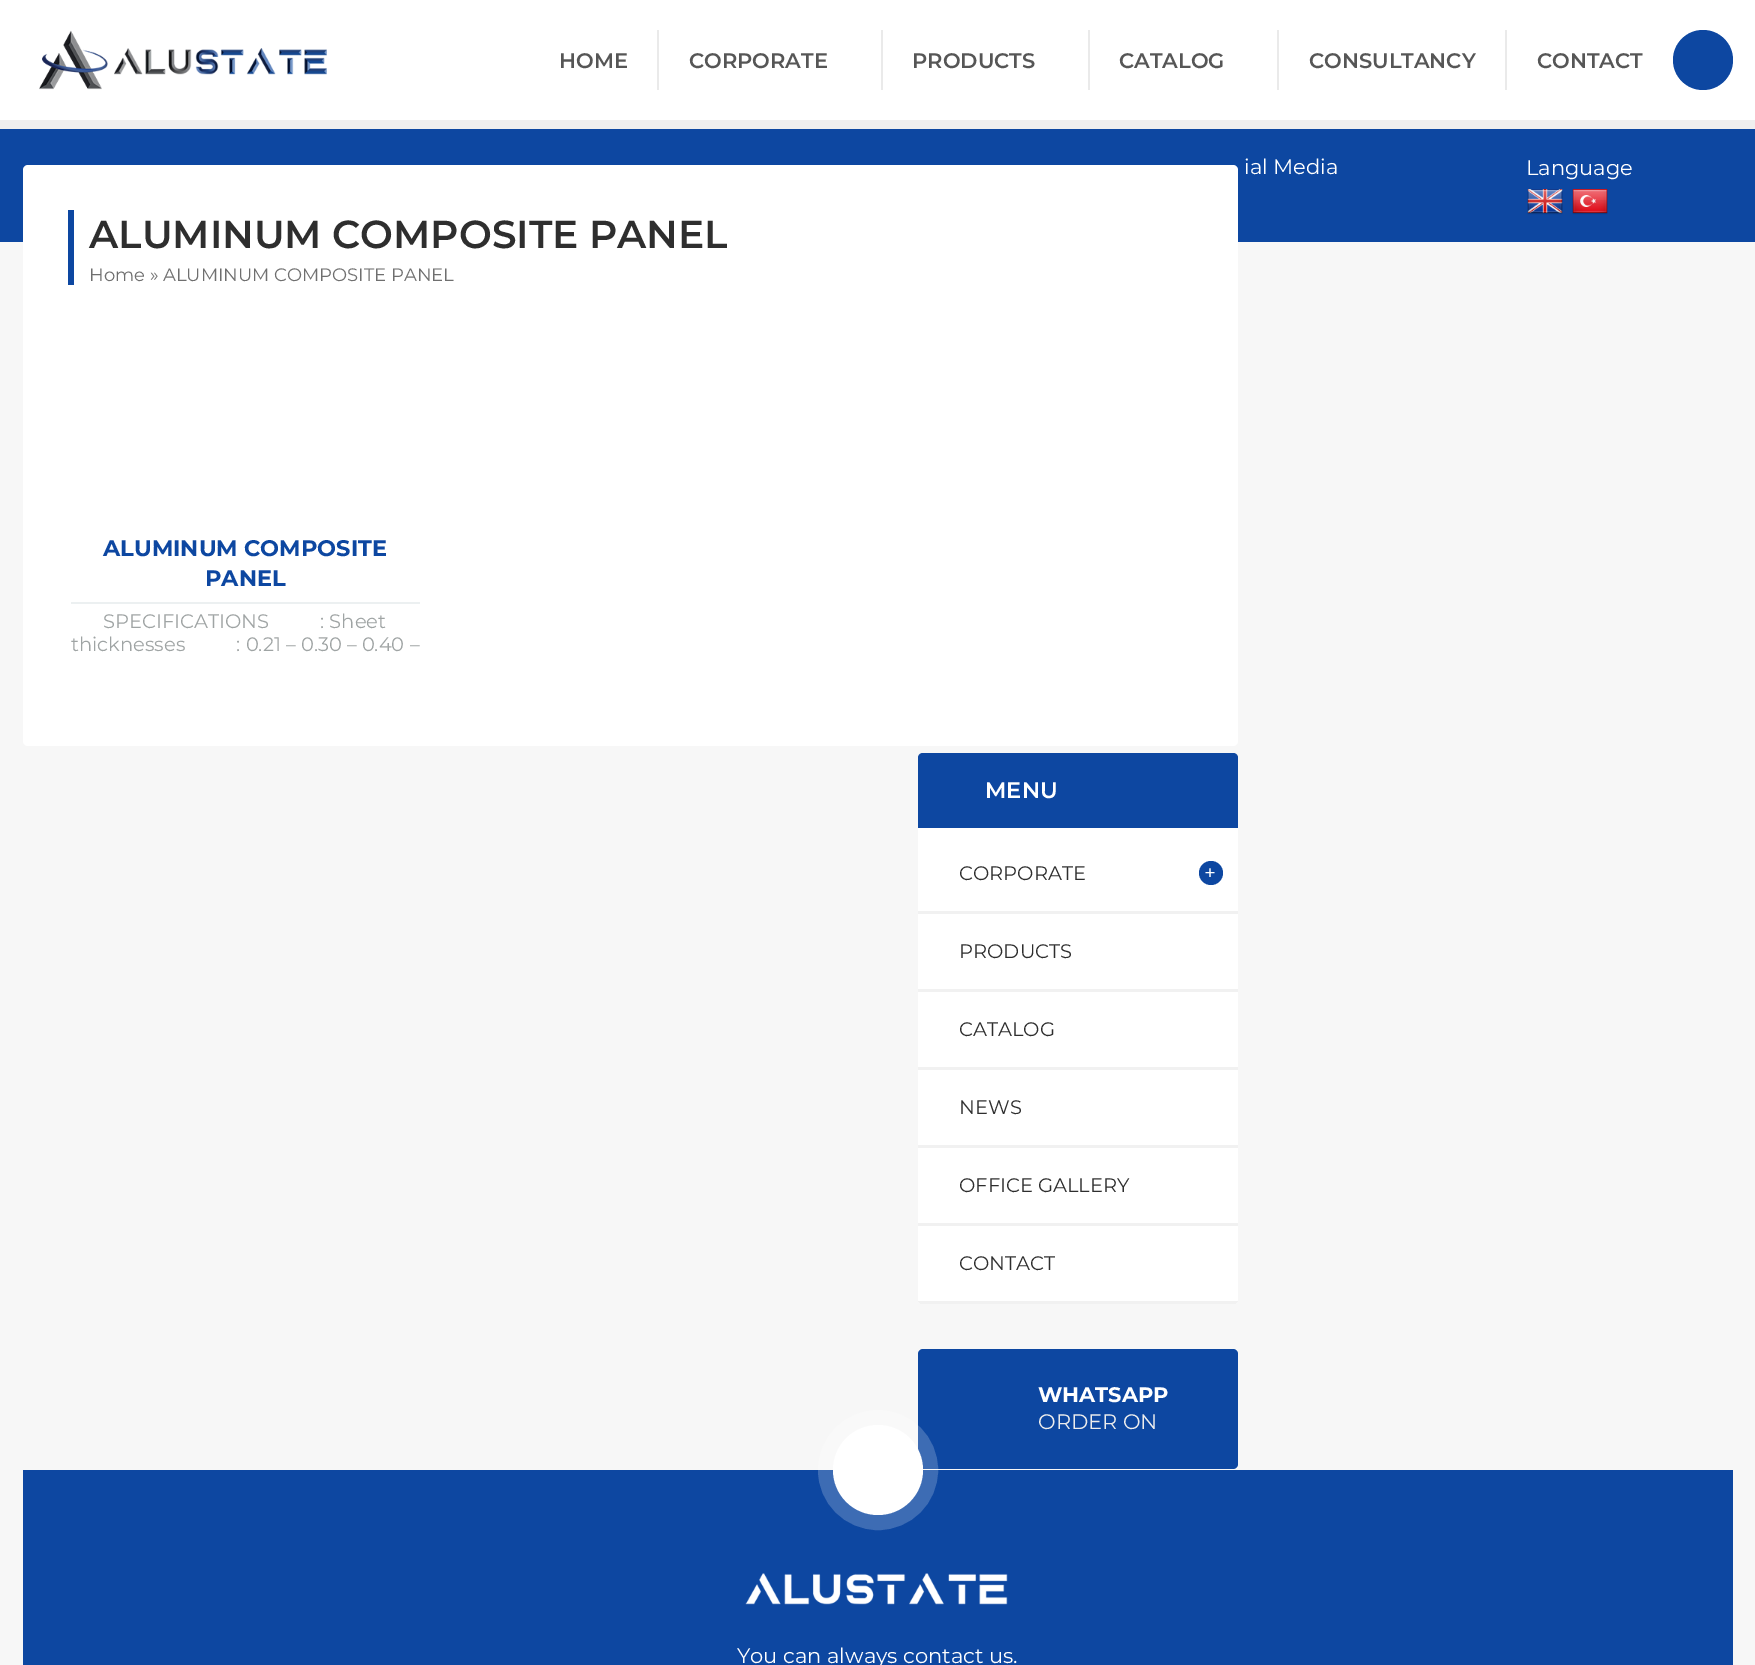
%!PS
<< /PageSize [1755 1665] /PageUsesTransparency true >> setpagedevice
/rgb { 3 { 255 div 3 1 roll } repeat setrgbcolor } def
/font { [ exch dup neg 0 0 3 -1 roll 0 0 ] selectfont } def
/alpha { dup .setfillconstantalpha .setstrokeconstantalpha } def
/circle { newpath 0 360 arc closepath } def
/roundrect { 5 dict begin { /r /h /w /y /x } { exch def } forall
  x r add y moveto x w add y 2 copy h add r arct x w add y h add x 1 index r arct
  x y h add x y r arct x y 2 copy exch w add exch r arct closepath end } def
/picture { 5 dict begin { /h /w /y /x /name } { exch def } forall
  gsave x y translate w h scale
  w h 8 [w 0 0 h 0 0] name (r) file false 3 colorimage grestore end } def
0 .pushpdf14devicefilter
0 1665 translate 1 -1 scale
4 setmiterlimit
247 247 247 rgb
0 0 1755 1665 rectfill
255 255 255 rgb
0 0 1755 120 rectfill
239 239 239 rgb
0 120 1755 9 rectfill
(img/1.rgb) 39 30 288 60 picture
[
  [657 30 2 60 234 234 234]
  [881 30 2 60 234 234 234]
  [1088 30 2 60 234 234 234]
  [1277 30 2 60 234 234 234]
  [1505 30 2 60 234 234 234]
] { aload pop rgb rectfill } forall
13 71 161 rgb
1703 60 30 circle fill
0 129 1755 113 rectfill
(img/2.rgb) 1527 189 36 26 picture
(img/3.rgb) 1572 189 36 26 picture
255 255 255 rgb
23 165 1215 581 5 roundrect fill
13 71 161 rgb
68 210 6 75 rectfill
236 240 241 rgb
71 602 349 2 rectfill
255 255 255 rgb
918 753 320 551 5 roundrect fill
13 71 161 rgb
923 753 moveto 1233 753 lineto 1236 753 1238 755 1238 758 curveto 1238 828 lineto 918 828 lineto 918 758 lineto 918 755 920 753 923 753 curveto closepath fill
241 241 241 rgb
918 911 320 3 rectfill
13 71 161 rgb
1211 873 12 circle fill
[
  [918 989 320 3 241 241 241]
  [918 1067 320 3 241 241 241]
  [918 1145 320 3 241 241 241]
  [918 1223 320 3 241 241 241]
] { aload pop rgb rectfill } forall
gsave
918 753 320 551 5 roundrect clip newpath
918 1301 320 3 rectfill
grestore
13 71 161 rgb
918 1349 320 120 5 roundrect fill
23 1470 1710 195 rectfill
0.2 alpha
255 255 255 rgb
15 setlinewidth
878 1470 52.5 circle stroke
1 alpha
878 1470 45 circle fill
(img/4.rgb) 745 1573 263 32 picture
/Montserrat-SemiBold 21 font
86 86 86 rgb
[
  [(HOME) 559 68]
  [(CORPORATE) 689 68]
  [(PRODUCTS) 912 68]
  [(CATALOG) 1119 68]
  [(CONSULTANCY) 1309 68]
  [(CONTACT) 1537 68]
] { aload pop moveto show } forall
/Montserrat-Regular 21 font
255 255 255 rgb
1244 174 moveto (ial Media) show
1526 175 moveto (Language) show
/Montserrat-SemiBold 39 font
46 46 46 rgb
89 248 moveto (ALUMINUM COMPOSITE PANEL) show
/Montserrat-Regular 18 font
111 111 111 rgb
89 281 moveto (Home » ALUMINUM COMPOSITE PANEL) show
/Montserrat-Bold 22.5 font
13 71 161 rgb
103 556 moveto (ALUMINUM COMPOSITE) show
205 586 moveto (PANEL) show
/Montserrat-Regular 19.5 font
159 164 164 rgb
103 628 moveto (SPECIFICATIONS          : Sheet) show
71 651 moveto (thicknesses          : 0.21 – 0.30 – 0.40 –) show
/Montserrat-SemiBold 22.5 font
255 255 255 rgb
985 798 moveto (MENU) show
/Montserrat-Regular 19.5 font
46 46 46 rgb
959 880 moveto (CORPORATE) show
/Montserrat-Regular 21 font
255 255 255 rgb
1204 880 moveto (+) show
/Montserrat-Regular 19.5 font
46 46 46 rgb
[
  [(PRODUCTS) 959 958]
  [(CATALOG) 959 1036]
  [(NEWS) 959 1114]
  [(OFFICE GALLERY) 959 1192]
  [(CONTACT) 959 1270]
] { aload pop moveto show } forall
/Montserrat-Bold 21 font
255 255 255 rgb
1038 1402 moveto (WHATSAPP) show
/Montserrat-Regular 21 font
237 237 237 rgb
1038 1429 moveto (ORDER ON) show
255 255 255 rgb
737 1663 moveto (You can always contact us.) show
.poppdf14devicefilter showpage
